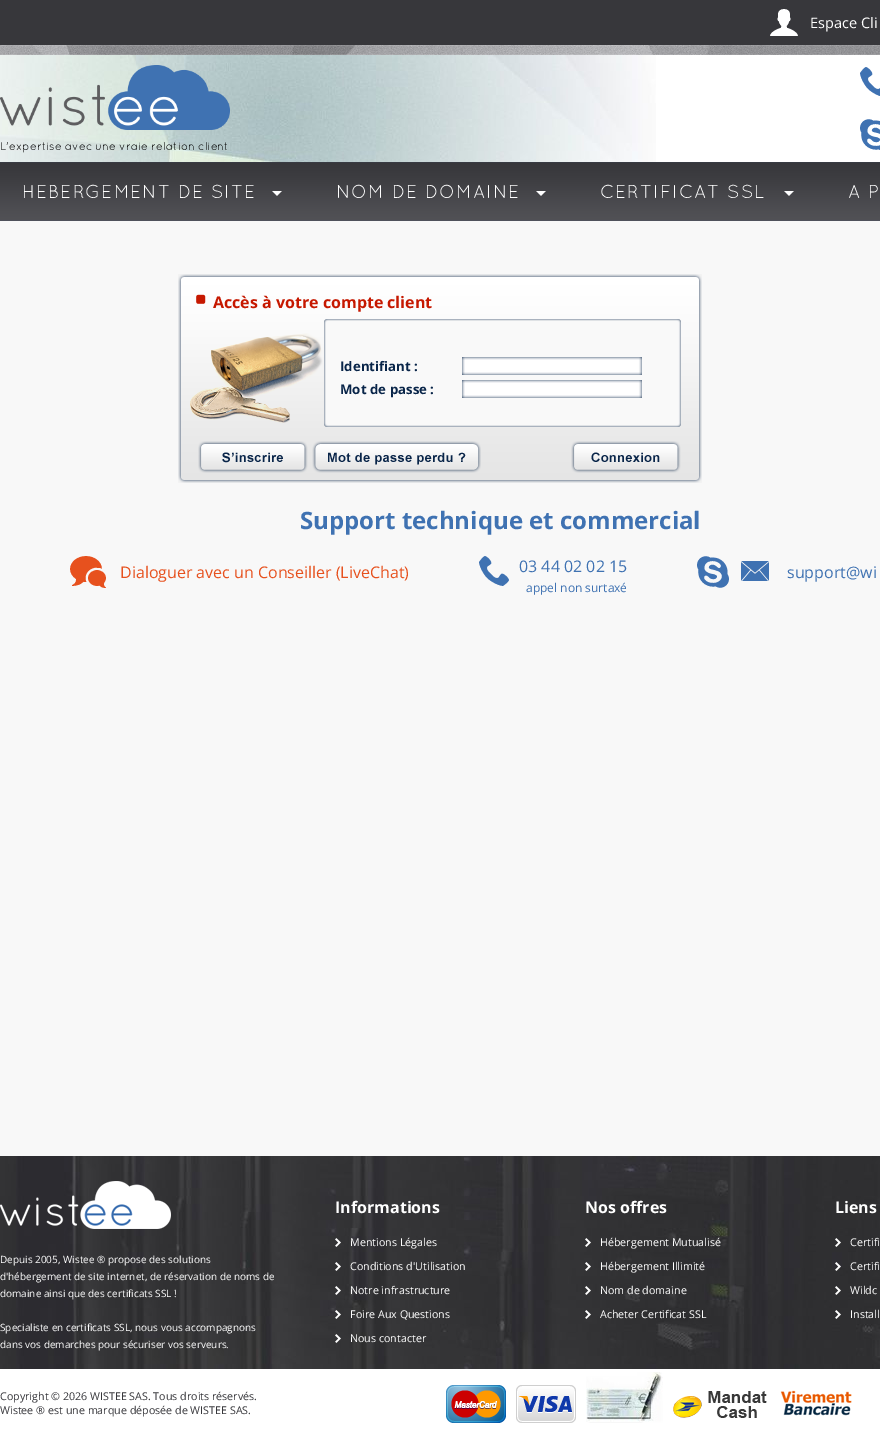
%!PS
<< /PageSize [880 1445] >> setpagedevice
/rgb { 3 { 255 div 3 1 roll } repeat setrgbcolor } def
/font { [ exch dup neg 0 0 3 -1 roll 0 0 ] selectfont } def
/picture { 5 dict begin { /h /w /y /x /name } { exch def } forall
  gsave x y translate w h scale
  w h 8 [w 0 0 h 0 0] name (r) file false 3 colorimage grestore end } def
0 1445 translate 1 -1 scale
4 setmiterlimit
255 255 255 rgb
0 0 880 1445 rectfill
55 55 59 rgb
0 0 880 45 rectfill
(img/1.rgb) 770 9 28 27 picture
(img/2.rgb) 0 45 880 10 picture
(img/3.rgb) 0 55 656 107 picture
(img/4.rgb) 0 65 230 65 picture
(img/5.rgb) 860 67 20 29 picture
(img/6.rgb) 860 119 20 31 picture
(img/7.rgb) 0 162 880 59 picture
(img/8.rgb) 272 191 10 5 picture
(img/8.rgb) 536 191 10 5 picture
(img/8.rgb) 784 191 10 5 picture
248 248 248 rgb
0 221 880 935 rectfill
(img/9.rgb) 178 274 524 209 picture
(img/10.rgb) 462 357 180 18 picture
(img/10.rgb) 462 380 180 18 picture
(img/11.rgb) 198 441 110 32 picture
(img/12.rgb) 312 441 169 32 picture
(img/13.rgb) 571 441 110 32 picture
(img/14.rgb) 70 556 36 32 picture
(img/15.rgb) 479 556 30 30 picture
(img/16.rgb) 697 556 72 32 picture
(img/17.rgb) 0 1156 880 213 picture
(img/18.rgb) 0 1181 171 48 picture
(img/19.rgb) 335 1238 6 9 picture
(img/20.rgb) 335 1262 6 9 picture
(img/21.rgb) 335 1286 6 9 picture
(img/22.rgb) 335 1310 6 9 picture
(img/23.rgb) 335 1334 6 9 picture
(img/24.rgb) 585 1238 6 9 picture
(img/25.rgb) 585 1262 6 9 picture
(img/25.rgb) 585 1286 6 9 picture
(img/26.rgb) 585 1310 6 9 picture
(img/27.rgb) 835 1238 6 9 picture
(img/28.rgb) 835 1262 6 9 picture
(img/27.rgb) 835 1286 6 9 picture
(img/27.rgb) 835 1310 6 9 picture
(img/29.rgb) 446 1385 60 38 picture
(img/30.rgb) 516 1385 60 38 picture
(img/31.rgb) 586 1372 77 51 picture
(img/32.rgb) 673 1391 94 27 picture
(img/33.rgb) 780 1390 72 26 picture
/OpenSans-Regular 14.5 font
255 255 255 rgb
810 28 moveto (Espace Cli) show
/Quicksand-Regular 11.3 font
0 0 0 rgb
0 150 moveto (L'expertise avec une vraie relation client) show
/Quicksand-Regular 18.7 font
255 255 255 rgb
22 198 moveto 1 0 (HEBERGEMENT DE SITE) ashow
336 198 moveto 1 0 (NOM DE DOMAINE) ashow
600 198 moveto 1 0 (CERTIFICAT SSL) ashow
848 198 moveto 1 0 (A P) ashow
/OpenSans-Bold 16 font
198 24 0 rgb
213 308 moveto (Accès à votre compte client) show
/OpenSans-Bold 13.25 font
9 37 73 rgb
340 371 moveto (Identifiant :) show
340 394 moveto (Mot de passe :) show
/OpenSans-Bold 24 font
63 114 178 rgb
300 529 moveto (Support technique et commercial) show
/OpenSans-Regular 16 font
231 81 30 rgb
120 578 moveto (Dialoguer avec un Conseiller \(LiveChat\)) show
63 114 178 rgb
519 572 moveto (03 44 02 02 15) show
/OpenSans-Regular 12 font
526 592 moveto (appel non surtaxé) show
/OpenSans-Regular 16 font
787 578 moveto (support@wi) show
/OpenSans-Regular 10 font
255 255 255 rgb
[
  [(Depuis 2005, Wistee ® propose des solutions) 0 1263]
  [(d'hébergement de site internet, de réservation de noms de) 0 1280]
  [(domaine ainsi que des certificats SSL !) 0 1297]
  [(Specialiste en certificats SSL, nous vous accompagnons) 0 1331]
  [(dans vos demarches pour sécuriser vos serveurs.) 0 1348]
] { aload pop moveto show } forall
/OpenSans-Bold 16 font
335 1213 moveto (Informations) show
/OpenSans-Regular 10.7 font
[
  [(Mentions Légales) 350 1246]
  [(Conditions d'Utilisation) 350 1270]
  [(Notre infrastructure) 350 1294]
  [(Foire Aux Questions) 350 1318]
  [(Nous contacter) 350 1342]
] { aload pop moveto show } forall
/OpenSans-Bold 16 font
585 1213 moveto (Nos offres) show
/OpenSans-Regular 10.7 font
[
  [(Hébergement Mutualisé) 600 1246]
  [(Hébergement Illimité) 600 1270]
  [(Nom de domaine) 600 1294]
  [(Acheter Certificat SSL) 600 1318]
] { aload pop moveto show } forall
/OpenSans-Bold 16 font
835 1213 moveto (Liens) show
/OpenSans-Regular 10.7 font
[
  [(Certifi) 850 1246]
  [(Certifi) 850 1270]
  [(Wildc) 850 1294]
  [(Install) 850 1318]
] { aload pop moveto show } forall
55 55 59 rgb
0 1400 moveto (Copyright © 2026 WISTEE SAS. Tous droits réservés.) show
0 1414 moveto (Wistee ® est une marque déposée de WISTEE SAS.) show
showpage
